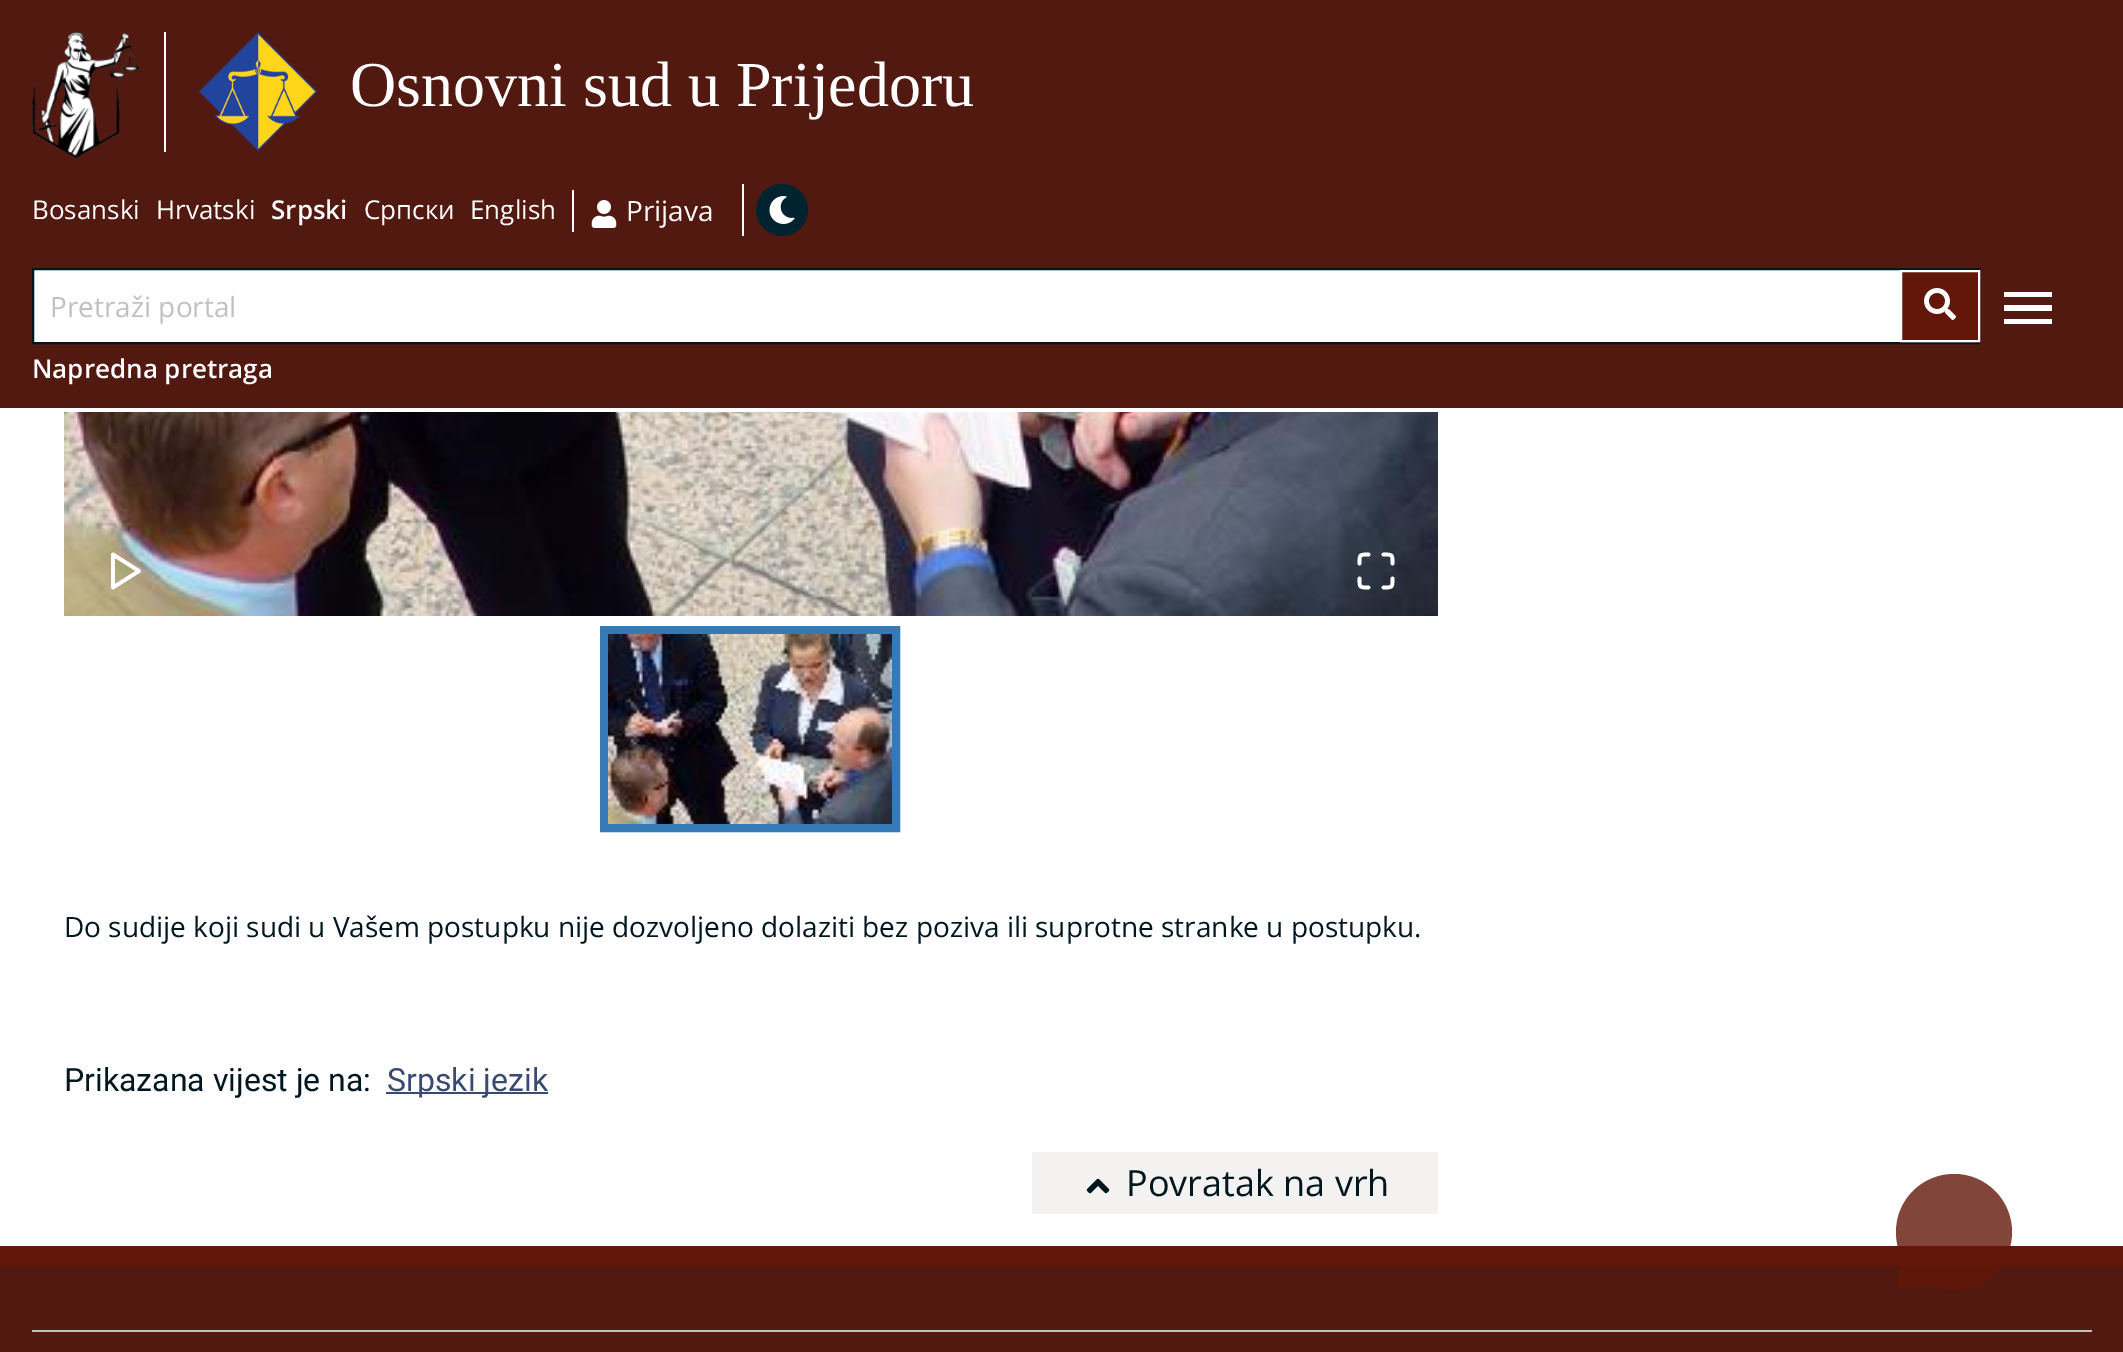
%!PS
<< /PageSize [2123 1352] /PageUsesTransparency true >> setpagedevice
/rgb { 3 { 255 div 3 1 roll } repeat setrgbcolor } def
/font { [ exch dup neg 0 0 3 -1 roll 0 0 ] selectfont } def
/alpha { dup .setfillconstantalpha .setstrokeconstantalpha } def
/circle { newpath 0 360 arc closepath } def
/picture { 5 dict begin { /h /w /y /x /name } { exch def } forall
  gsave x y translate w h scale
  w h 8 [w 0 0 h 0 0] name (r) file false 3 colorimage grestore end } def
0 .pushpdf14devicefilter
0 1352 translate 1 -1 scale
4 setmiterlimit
255 255 255 rgb
0 0 2123 1352 rectfill
82 25 17 rgb
0 0 2123 408 rectfill
(img/1.rgb) 32 32 108 127 picture
255 255 255 rgb
164 32 2 120 rectfill
(img/2.rgb) 198 32 120 120 picture
572 190 2 42 rectfill
(img/3.rgb) 591 200 26 28 picture
742 184 2 52 rectfill
0 35 48 rgb
782 210 26 circle fill
(img/4.rgb) 769 196 26 28 picture
255 255 255 rgb
34 270 1866 72 rectfill
0 23 31 rgb
2 setlinewidth
33 269 1946 74 rectstroke
98 23 8 rgb
1901 271 moveto 1979 271 lineto 1979 341 lineto 1901 341 lineto closepath gsave fill grestore
255 255 255 rgb
stroke
(img/5.rgb) 1924 288 32 32 picture
2004 324 moveto 2052 324 lineto 2052 319 lineto 2004 319 lineto closepath 2004 311 moveto 2052 311 lineto 2052 305 lineto 2004 305 lineto closepath 2004 292 moveto 2004 297 lineto 2052 297 lineto 2052 292 lineto closepath fill
(img/6.rgb) 64 412 1374 204 picture
3.7 setlinewidth
1 setlinecap
1 setlinejoin
113 554.5 moveto 139 571 lineto 113 587.5 lineto closepath stroke
1368.5 554.5 moveto 1359.5 554.5 1359.5 554.5 1359.5 563.5 curveto 1392.5 563.5 moveto 1392.5 554.5 1392.5 554.5 1383.5 554.5 curveto 1383.5 587.5 moveto 1392.5 587.5 1392.5 587.5 1392.5 578.5 curveto 1359.5 578.5 moveto 1359.5 587.5 1359.5 587.5 1368.5 587.5 curveto stroke
51 122 183 rgb
8 setlinewidth
0 setlinecap
0 setlinejoin
604 630 292 198 rectstroke
(img/7.rgb) 608 634 284 190 picture
56 74 113 rgb
386 1092 162 2 rectfill
243 242 241 rgb
1032 1152 406 62 rectfill
(img/8.rgb) 1086 1178 24 16 picture
98 23 8 rgb
0 1246 2123 20 rectfill
82 25 17 rgb
0 1266 2123 86 rectfill
0.8 alpha
98 23 8 rgb
1927 1283 moveto 1896 1290 lineto 1903 1259 lineto 1898 1251 1896 1242 1896 1232 curveto 1896 1200 1922 1174 1954 1174 curveto 1986 1174 2012 1200 2012 1232 curveto 2012 1264 1986 1290 1954 1290 curveto 1944 1290 1935 1288 1927 1283 curveto closepath fill
1 alpha
191 193 195 rgb
32 1330 2060 2 rectfill
/LiberationSerif-Regular 64 font
255 255 255 rgb
350 106 moveto (Osnovni sud u Prijedoru) show
/OpenSans-Regular 26 font
32 219 moveto (Bosanski) show
156 219 moveto (Hrvatski) show
/OpenSans-SemiBold 26 font
271 219 moveto (Srpski) show
/OpenSans-Regular 26 font
364 219 moveto (Српски) show
470 219 moveto (English) show
/OpenSans-Regular 28 font
626 221 moveto (Prijava) show
192 192 192 rgb
50 317 moveto (Pretraži portal) show
/OpenSans-SemiBold 26 font
255 255 255 rgb
32 378 moveto (Napredna pretraga) show
/OpenSans-Regular 28 font
0 23 31 rgb
64 937 moveto (Do sudije koji sudi u Vašem postupku nije dozvoljeno dolaziti bez poziva ili suprotne stranke u postupku.) show
/Roboto-Regular 32 font
64 1091 moveto (Prikazana vijest je na:) show
56 74 113 rgb
387 1091 moveto (Srpski jezik) show
/OpenSans-Regular 36 font
0 23 31 rgb
1126 1196 moveto (Povratak na vrh) show
.poppdf14devicefilter showpage
